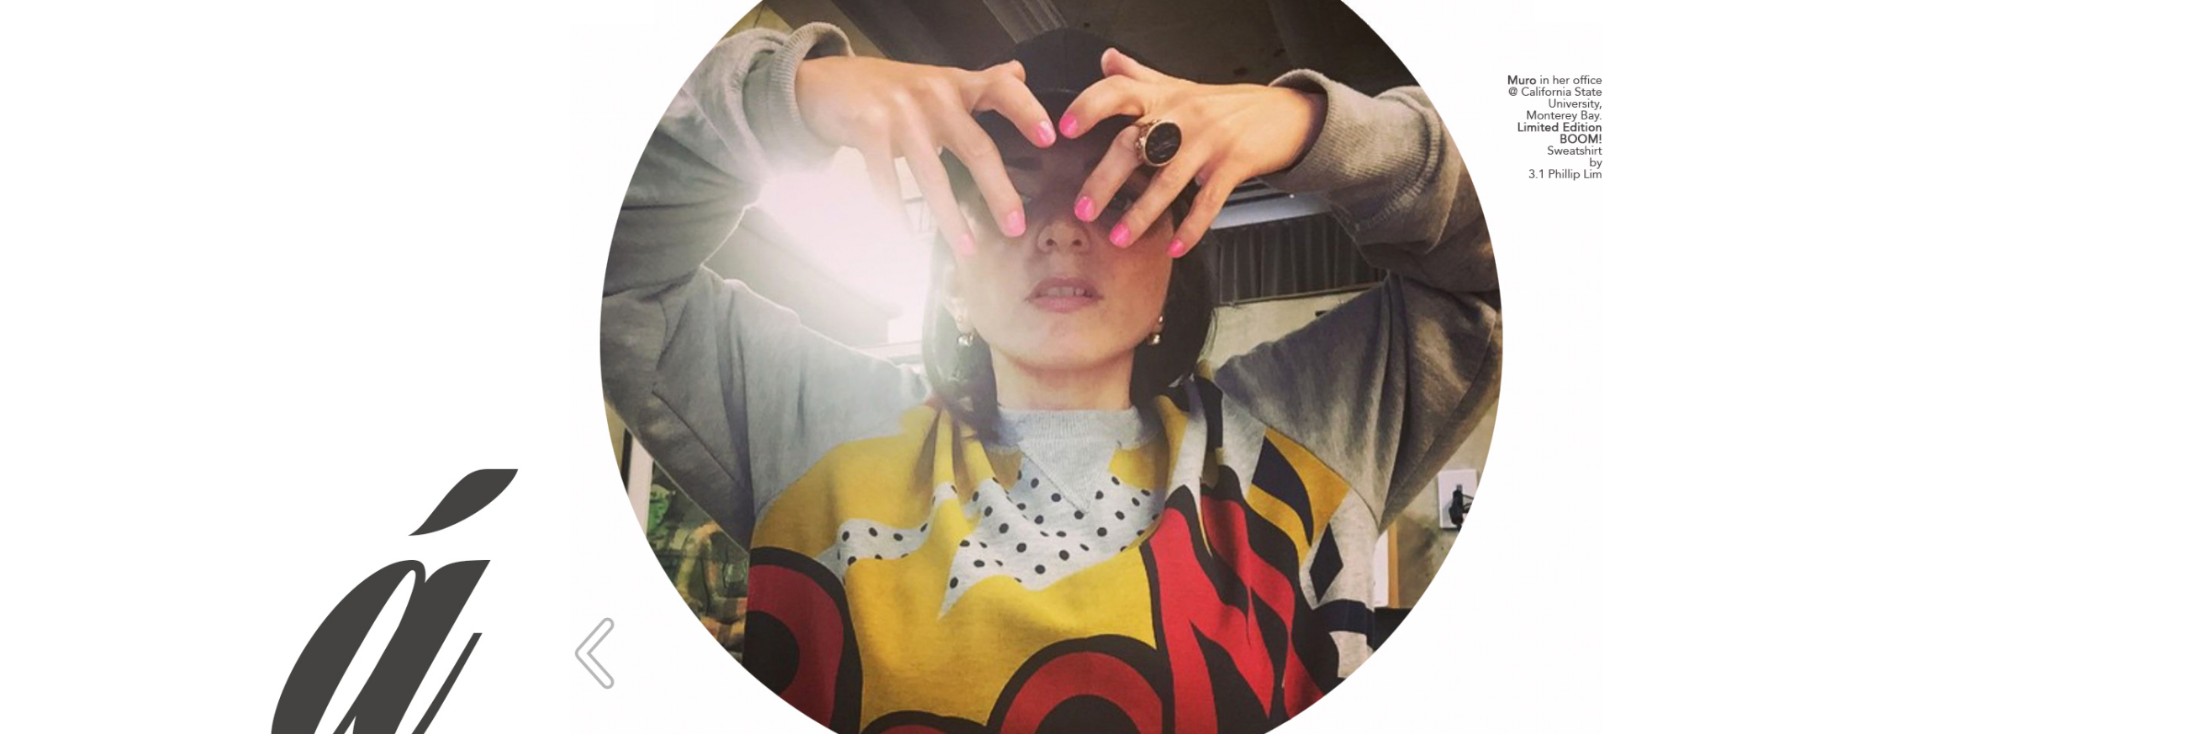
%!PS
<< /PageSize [2185 734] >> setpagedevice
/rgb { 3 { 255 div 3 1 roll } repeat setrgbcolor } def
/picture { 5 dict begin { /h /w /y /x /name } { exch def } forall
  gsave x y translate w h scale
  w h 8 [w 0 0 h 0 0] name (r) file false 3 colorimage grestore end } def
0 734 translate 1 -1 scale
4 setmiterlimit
255 255 255 rgb
0 0 2185 734 rectfill
(img/1.rgb) 270 0 1333 734 picture
showpage
